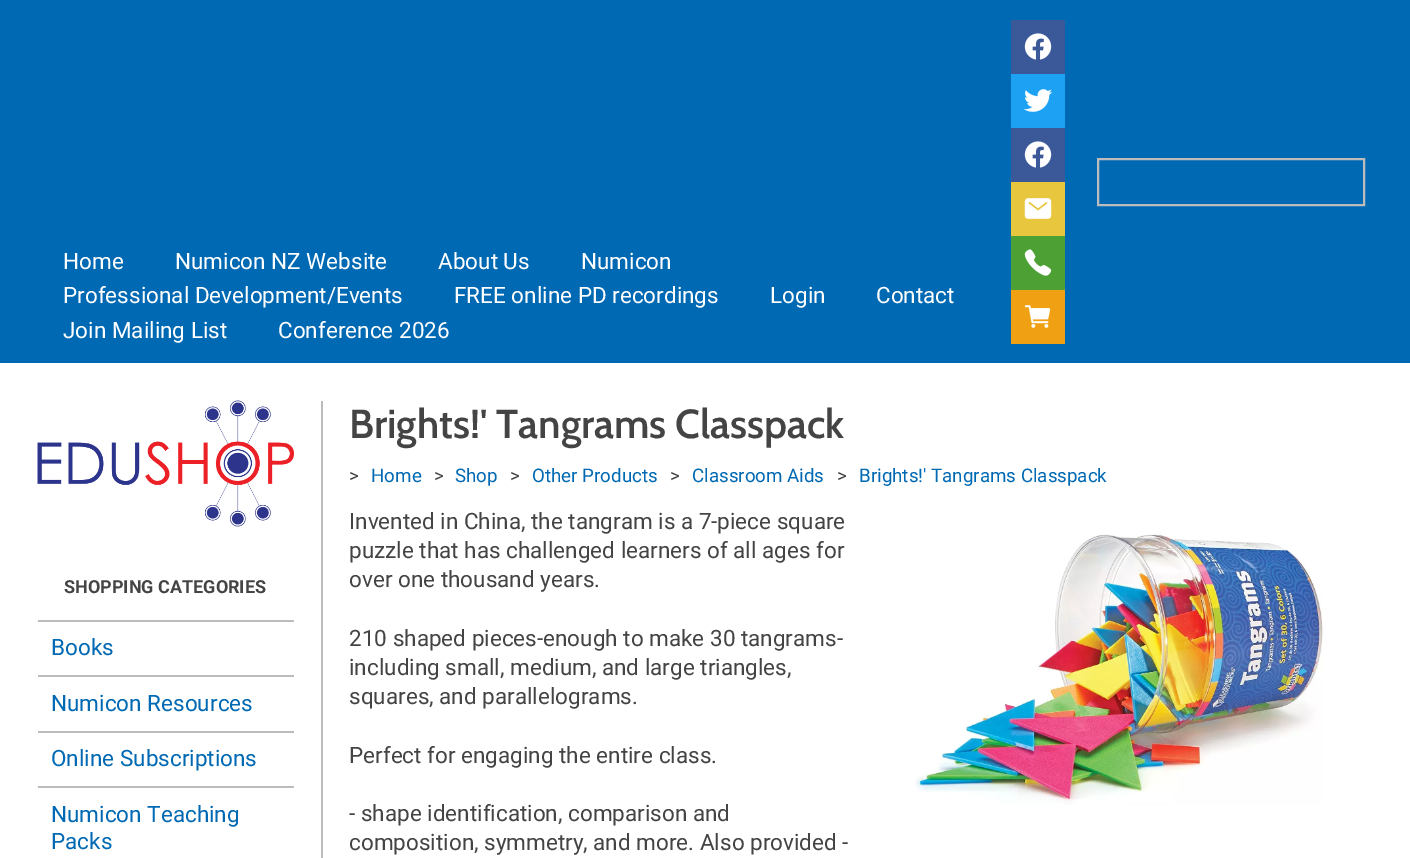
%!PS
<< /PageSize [1410 858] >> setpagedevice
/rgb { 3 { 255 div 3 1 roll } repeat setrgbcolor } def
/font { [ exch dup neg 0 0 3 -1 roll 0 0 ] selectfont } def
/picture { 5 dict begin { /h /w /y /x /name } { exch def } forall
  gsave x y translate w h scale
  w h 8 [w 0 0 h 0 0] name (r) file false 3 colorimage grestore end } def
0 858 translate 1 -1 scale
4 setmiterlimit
255 255 255 rgb
0 0 1410 858 rectfill
0 105 180 rgb
0 0 1410 363 rectfill
59 89 152 rgb
1011 20 54 54 rectfill
(img/1.rgb) 1024 33 28 27 picture
29 161 242 rgb
1011 74 54 54 rectfill
(img/2.rgb) 1024 89 28 23 picture
59 89 152 rgb
1011 128 54 54 rectfill
(img/1.rgb) 1024 141 28 27 picture
232 198 62 rgb
1011 182 54 54 rectfill
(img/3.rgb) 1024 198 28 21 picture
77 160 51 rgb
1011 236 54 54 rectfill
(img/4.rgb) 1024 249 28 27 picture
239 161 19 rgb
1011 290 54 54 rectfill
(img/5.rgb) 1024 305 27 23 picture
188 188 188 rgb
2 setlinewidth
1098 159 266 46 rectstroke
321 401 2 457 rectfill
(img/6.rgb) 37 400 257 127 picture
[
  [38 620 256 2 188 188 188]
  [38 675 256 2 188 188 188]
  [38 731 256 2 188 188 188]
  [38 786 256 2 188 188 188]
] { aload pop rgb rectfill } forall
(img/7.rgb) 915 534 408 271 picture
/Roboto-Regular 22.5 font
255 255 255 rgb
[
  [(Home) 63 269]
  [(Numicon NZ Website) 175 269]
  [(About Us) 438 269]
  [(Numicon) 581 269]
  [(Professional Development/Events) 63 303]
  [(FREE online PD recordings) 454 303]
  [(Login) 770 303]
  [(Contact) 876 303]
  [(Join Mailing List) 63 338]
  [(Conference 2026) 278 338]
] { aload pop moveto show } forall
/Roboto-Bold 18 font
68 68 68 rgb
64 593 moveto (SHOPPING CATEGORIES) show
/Roboto-Regular 22.5 font
0 105 180 rgb
[
  [(Books) 51 655]
  [(Numicon Resources) 51 711]
  [(Online Subscriptions) 51 766]
  [(Numicon Teaching) 51 822]
  [(Packs) 51 849]
] { aload pop moveto show } forall
/Cabin-SemiBold 40.5 font
68 68 68 rgb
349 438 moveto (Brights!' Tangrams Classpack) show
/Roboto-Regular 18.75 font
349 482 moveto (>) show
0 105 180 rgb
371 482 moveto (Home) show
68 68 68 rgb
434 482 moveto (>) show
0 105 180 rgb
455 482 moveto (Shop) show
68 68 68 rgb
510 482 moveto (>) show
0 105 180 rgb
532 482 moveto (Other Products) show
68 68 68 rgb
670 482 moveto (>) show
0 105 180 rgb
692 482 moveto (Classroom Aids) show
68 68 68 rgb
837 482 moveto (>) show
0 105 180 rgb
859 482 moveto (Brights!' Tangrams Classpack) show
/Roboto-Regular 22.5 font
68 68 68 rgb
[
  [(Invented in China, the tangram is a 7-piece square) 349 529]
  [(puzzle that has challenged learners of all ages for) 349 558]
  [(over one thousand years.) 349 587]
  [(210 shaped pieces-enough to make 30 tangrams-) 349 646]
  [(including small, medium, and large triangles,) 349 675]
  [(squares, and parallelograms.) 349 704]
  [(Perfect for engaging the entire class.) 349 763]
  [(- shape identification, comparison and) 349 821]
  [(composition, symmetry, and more. Also provided -) 349 850]
] { aload pop moveto show } forall
showpage
